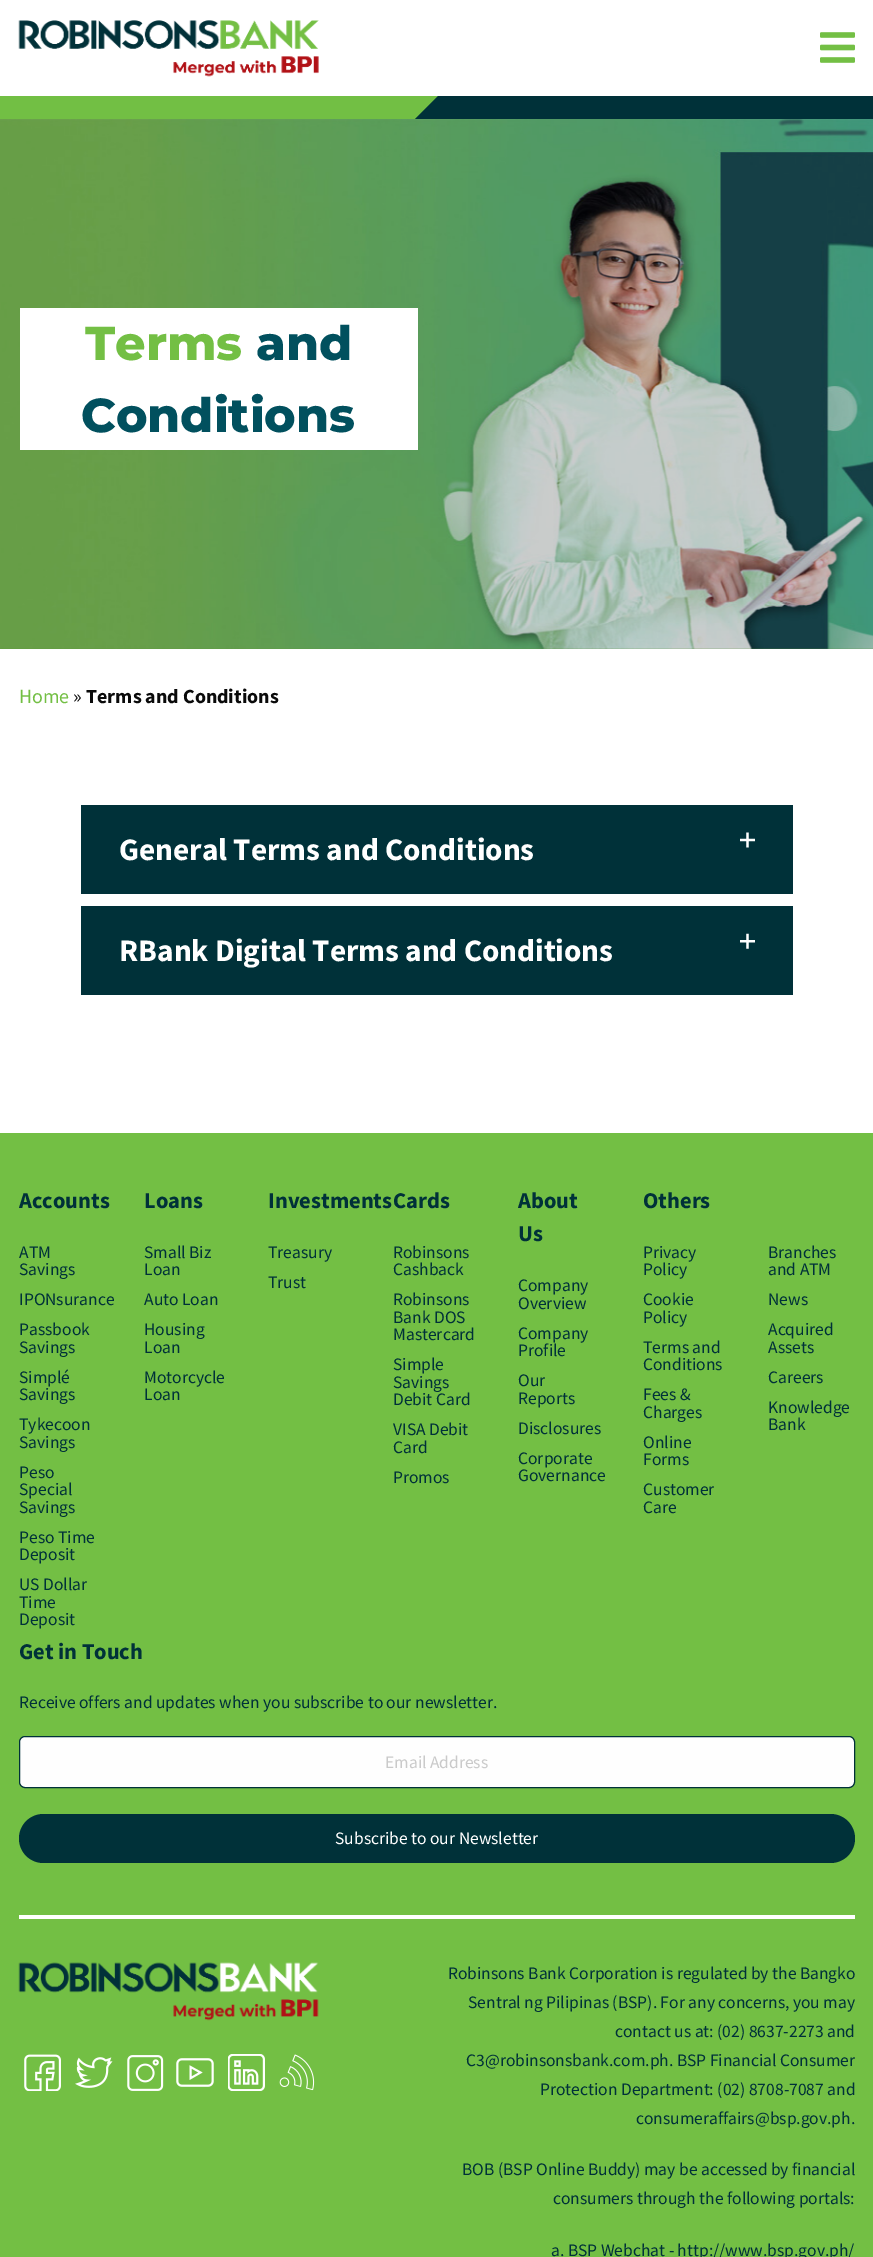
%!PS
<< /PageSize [873 2257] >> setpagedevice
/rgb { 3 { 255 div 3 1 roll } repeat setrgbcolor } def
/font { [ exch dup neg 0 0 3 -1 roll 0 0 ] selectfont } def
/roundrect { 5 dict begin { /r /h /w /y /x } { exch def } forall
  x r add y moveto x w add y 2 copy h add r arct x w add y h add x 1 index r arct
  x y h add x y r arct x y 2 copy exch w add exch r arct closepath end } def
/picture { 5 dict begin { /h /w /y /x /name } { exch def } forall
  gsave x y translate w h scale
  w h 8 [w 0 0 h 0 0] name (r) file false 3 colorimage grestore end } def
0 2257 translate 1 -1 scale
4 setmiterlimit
255 255 255 rgb
0 0 873 2257 rectfill
(img/1.rgb) 18 20 301 57 picture
(img/2.rgb) 820 32 35 31 picture
114 191 68 rgb
0 96 438 23 rectfill
0 49 57 rgb
438 96 435 23 rectfill
460 119 moveto 415 119 lineto 438 96 lineto closepath fill
(img/3.rgb) 0 119 873 530 picture
255 255 255 rgb
20 308 398 142 rectfill
0 49 57 rgb
81 805 712 89 rectfill
(img/4.rgb) 740 832 15 16 picture
81 906 712 89 rectfill
(img/5.rgb) 740 933 15 16 picture
115 191 68 rgb
0 1133 873 1124 rectfill
254 254 254 rgb
19.5 1736.5 835 51 5.5 roundrect gsave fill grestore
0 49 57 rgb
stroke
19 1814 836 49 24.5 roundrect fill
255 255 255 rgb
19 1915 836 4 rectfill
(img/6.rgb) 18 1962 301 59 picture
(img/7.rgb) 24 2054 37 37 picture
(img/8.rgb) 75 2057 38 31 picture
(img/9.rgb) 127 2055 37 36 picture
(img/10.rgb) 176 2058 38 29 picture
(img/11.rgb) 228 2054 37 37 picture
(img/12.rgb) 279 2054 36 37 picture
/Montserrat-ExtraBold 47.5 font
115 191 68 rgb
85 360 moveto (Terms) show
1 80 94 rgb
256 360 moveto (and) show
81 432 moveto (Conditions) show
/SourceSansPro-Regular 20 font
115 191 68 rgb
19 703 moveto (Home) show
10 10 10 rgb
73 703 moveto (») show
/SourceSansPro-Bold 20 font
86 703 moveto (Terms and Conditions) show
/SourceSansPro-Bold 31.25 font
255 255 255 rgb
119 860 moveto (General Terms and Conditions) show
119 961 moveto (RBank Digital Terms and Conditions) show
/SourceSansPro-Bold 22.5 font
0 49 57 rgb
19 1208 moveto (Accounts) show
/SourceSansPro-Regular 17.5 font
[
  [(ATM) 19 1258]
  [(Savings) 19 1275]
  [(IPONsurance) 19 1305]
  [(Passbook) 19 1335]
  [(Savings) 19 1353]
  [(Simplé) 19 1383]
  [(Savings) 19 1400]
  [(Tykecoon) 19 1430]
  [(Savings) 19 1448]
  [(Peso) 19 1478]
  [(Special) 19 1495]
  [(Savings) 19 1513]
  [(Peso Time) 19 1543]
  [(Deposit) 19 1560]
  [(US Dollar) 19 1590]
  [(Time) 19 1608]
  [(Deposit) 19 1625]
] { aload pop moveto show } forall
/SourceSansPro-Bold 22.5 font
144 1208 moveto (Loans) show
/SourceSansPro-Regular 17.5 font
[
  [(Small Biz) 144 1258]
  [(Loan) 144 1275]
  [(Auto Loan) 144 1305]
  [(Housing) 144 1335]
  [(Loan) 144 1353]
  [(Motorcycle) 144 1383]
  [(Loan) 144 1400]
] { aload pop moveto show } forall
/SourceSansPro-Bold 22.5 font
268 1208 moveto (Investments) show
/SourceSansPro-Regular 17.5 font
268 1258 moveto (Treasury) show
268 1288 moveto (Trust) show
/SourceSansPro-Bold 22.5 font
393 1208 moveto (Cards) show
/SourceSansPro-Regular 17.5 font
[
  [(Robinsons) 393 1258]
  [(Cashback) 393 1275]
  [(Robinsons) 393 1305]
  [(Bank DOS) 393 1323]
  [(Mastercard) 393 1340]
  [(Simple) 393 1370]
  [(Savings) 393 1388]
  [(Debit Card) 393 1405]
  [(VISA Debit) 393 1435]
  [(Card) 393 1453]
  [(Promos) 393 1483]
] { aload pop moveto show } forall
/SourceSansPro-Bold 22.5 font
518 1208 moveto (About) show
518 1241 moveto (Us) show
/SourceSansPro-Regular 17.5 font
[
  [(Company) 518 1291]
  [(Overview) 518 1309]
  [(Company) 518 1339]
  [(Profile) 518 1356]
  [(Our) 518 1386]
  [(Reports) 518 1404]
  [(Disclosures) 518 1434]
  [(Corporate) 518 1464]
  [(Governance) 518 1481]
] { aload pop moveto show } forall
/SourceSansPro-Bold 22.5 font
643 1208 moveto (Others) show
/SourceSansPro-Regular 17.5 font
[
  [(Privacy) 643 1258]
  [(Policy) 643 1275]
  [(Cookie) 643 1305]
  [(Policy) 643 1323]
  [(Terms and) 643 1353]
  [(Conditions) 643 1370]
  [(Fees &) 643 1400]
  [(Charges) 643 1418]
  [(Online) 643 1448]
  [(Forms) 643 1465]
  [(Customer) 643 1495]
  [(Care) 643 1513]
  [(Branches) 768 1258]
  [(and ATM) 768 1275]
  [(News) 768 1305]
  [(Acquired) 768 1335]
  [(Assets) 768 1353]
  [(Careers) 768 1383]
  [(Knowledge) 768 1413]
  [(Bank) 768 1430]
] { aload pop moveto show } forall
/SourceSansPro-Bold 22.5 font
19 1659 moveto (Get in Touch) show
/SourceSansPro-Regular 17.5 font
19 1708 moveto (Receive offers and updates when you subscribe to our newsletter.) show
202 202 202 rgb
385 1768 moveto (Email Address) show
255 255 255 rgb
335 1844 moveto (Subscribe to our Newsletter) show
0 49 57 rgb
[
  [(Robinsons Bank Corporation is regulated by the Bangko) 448 1979]
  [(Sentral ng Pilipinas \(BSP\). For any concerns, you may) 468 2008]
  [(contact us at: \(02\) 8637-2273 and) 615 2037]
  [(C3@robinsonsbank.com.ph. BSP Financial Consumer) 466 2066]
  [(Protection Department: \(02\) 8708-7087 and) 540 2095]
  [(consumeraffairs@bsp.gov.ph.) 636 2124]
  [(BOB \(BSP Online Buddy\) may be accessed by financial) 462 2175]
  [(consumers through the following portals:) 553 2204]
  [(a. BSP Webchat - http://www.bsp.gov.ph/) 551 2256]
] { aload pop moveto show } forall
showpage
